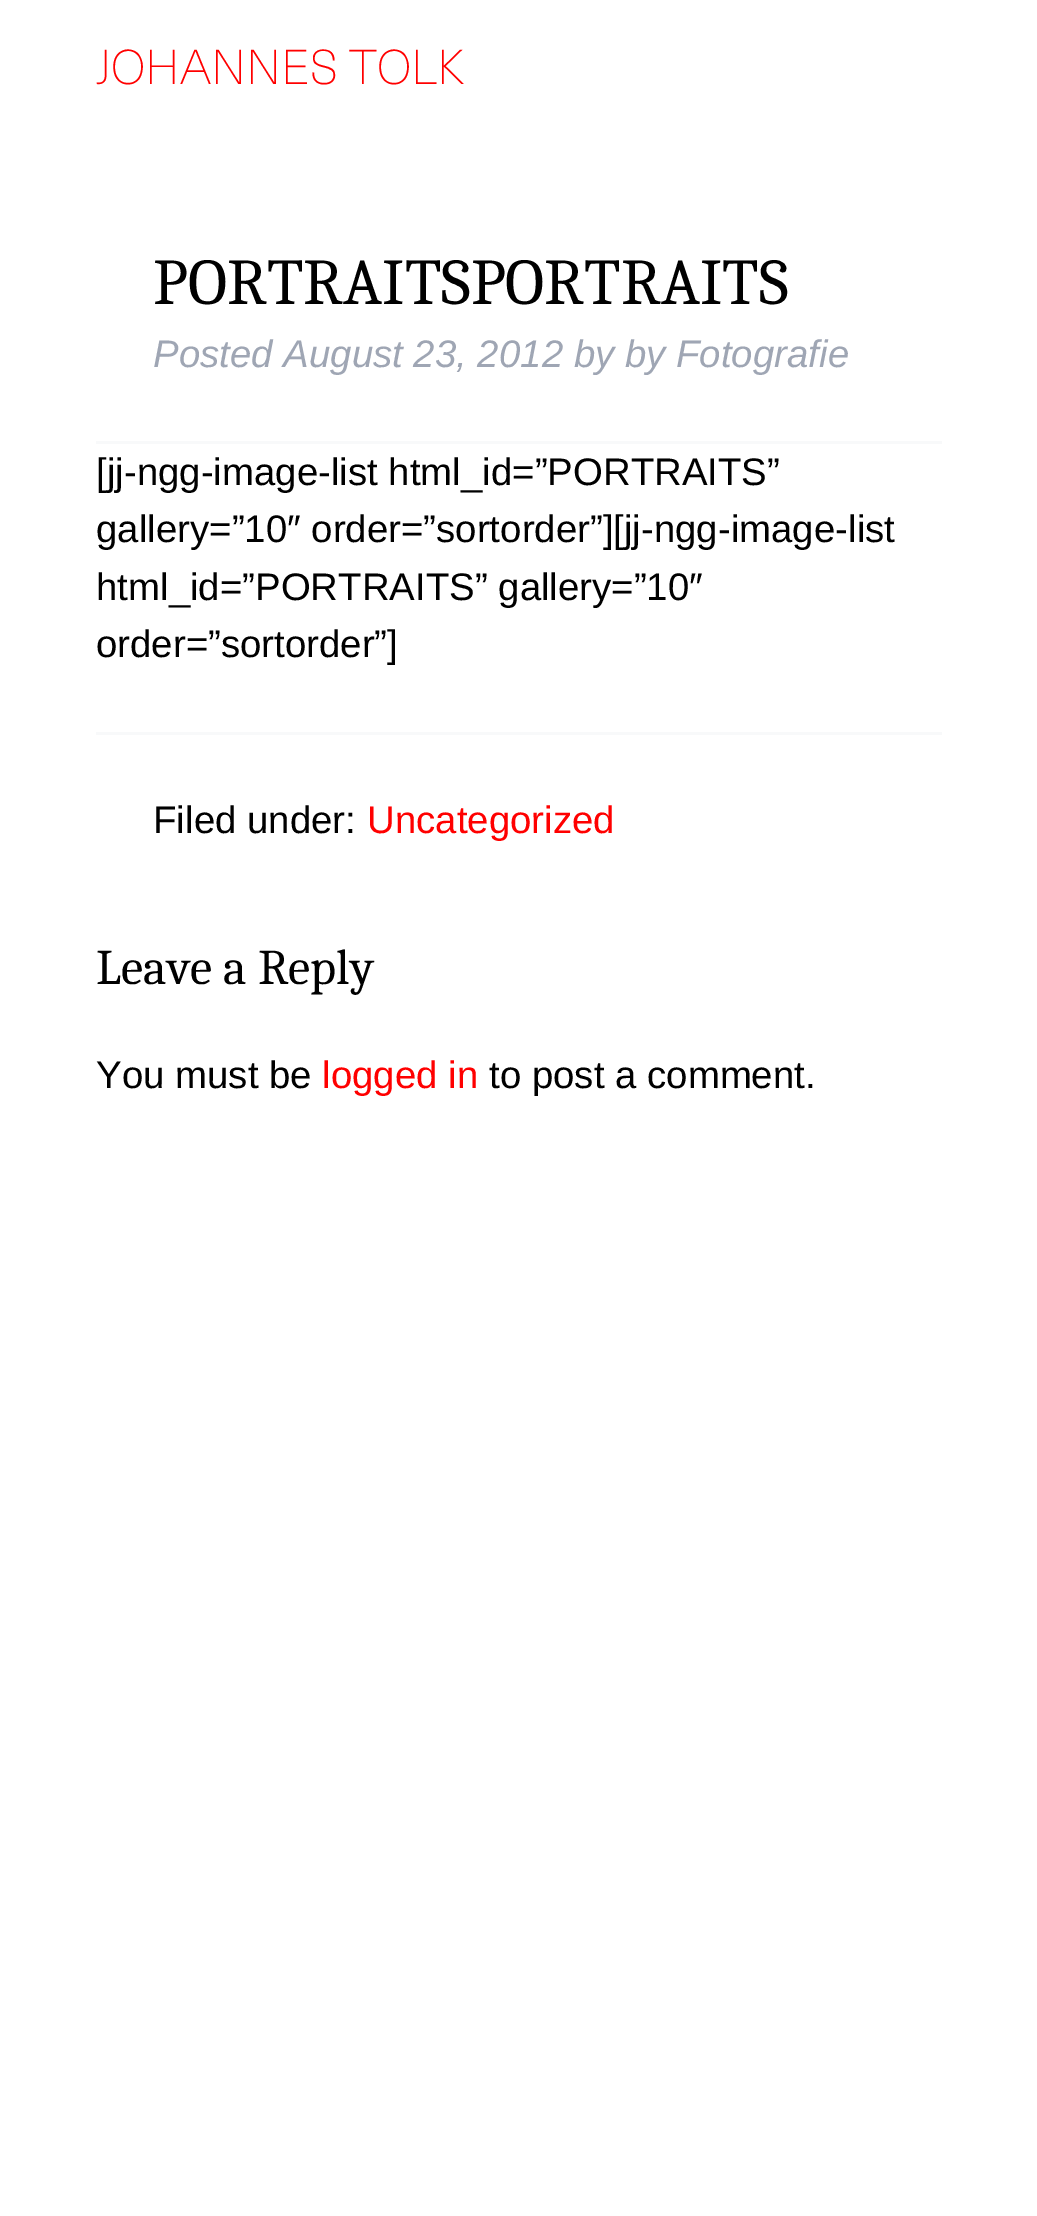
%!PS
<< /PageSize [1037 2216] >> setpagedevice
/rgb { 3 { 255 div 3 1 roll } repeat setrgbcolor } def
/font { [ exch dup neg 0 0 3 -1 roll 0 0 ] selectfont } def
0 2216 translate 1 -1 scale
4 setmiterlimit
255 255 255 rgb
0 0 1037 2216 rectfill
248 249 250 rgb
96 441 846 3 rectfill
96 732 846 3 rectfill
/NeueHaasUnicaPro-Thin 48 font
255 0 0 rgb
96 84 moveto (JOHANNES TOLK) show
/Caladea-Regular 65.25 font
0 0 0 rgb
153 304 moveto (PORTRAITSPORTRAITS) show
/LiberationSans-Italic 38.4 font
159 166 180 rgb
153 367 moveto (Posted August 23, 2012 by by Fotografie) show
/LiberationSans-Regular 38.4 font
0 0 0 rgb
[
  [([jj-ngg-image-list html_id=”PORTRAITS”) 96 485]
  [(gallery=”10″ order=”sortorder”][jj-ngg-image-list) 96 542]
  [(html_id=”PORTRAITS” gallery=”10″) 96 600]
  [(order=”sortorder”]) 96 657]
  [(Filed under:) 153 833]
] { aload pop moveto show } forall
255 0 0 rgb
367 833 moveto (Uncategorized) show
/Caladea-Regular 50 font
0 0 0 rgb
96 984 moveto (Leave a Reply) show
/LiberationSans-Regular 38.4 font
96 1088 moveto (You must be) show
255 0 0 rgb
322 1088 moveto (logged in) show
0 0 0 rgb
489 1088 moveto (to post a comment.) show
showpage
